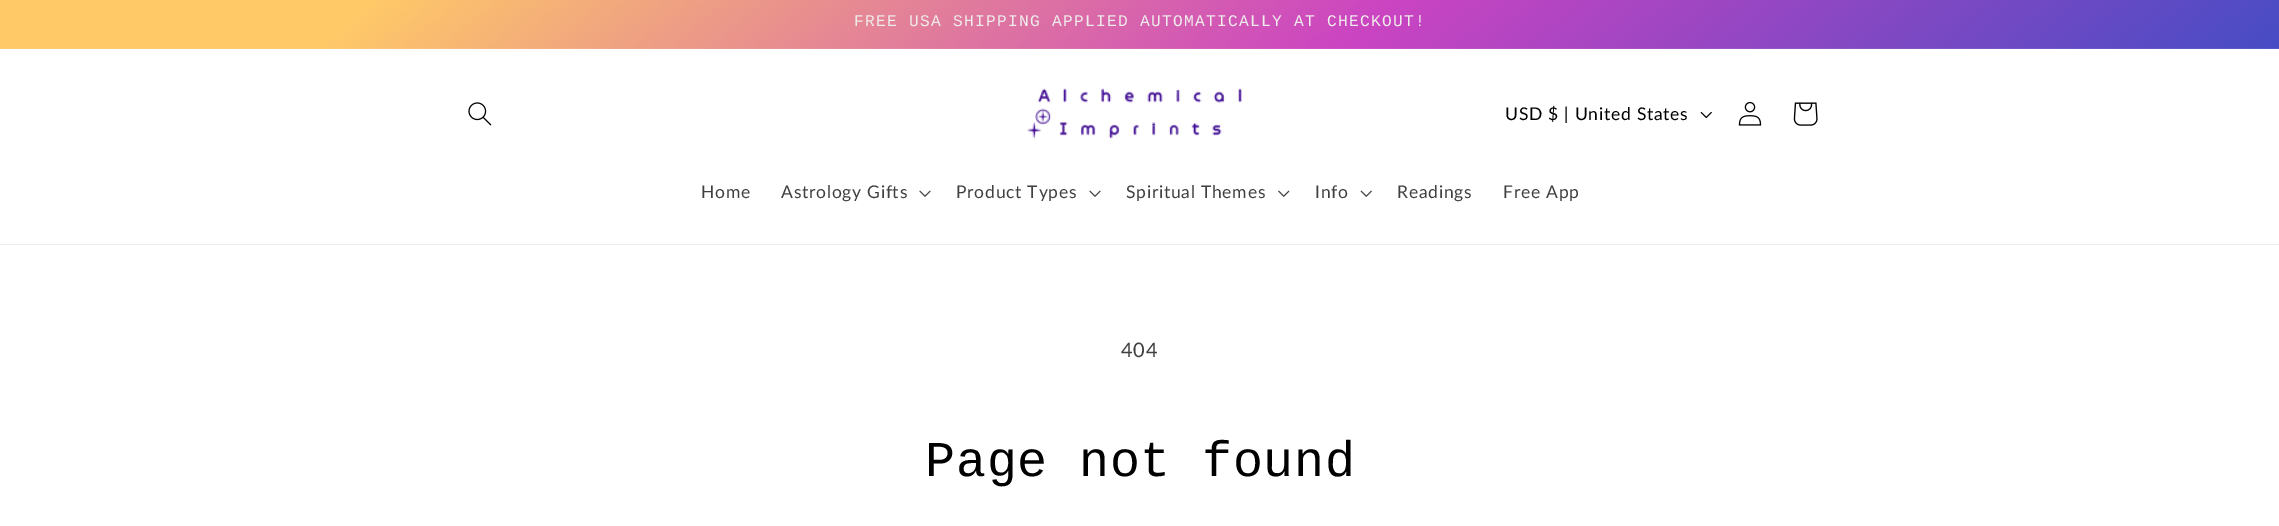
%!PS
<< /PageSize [2279 526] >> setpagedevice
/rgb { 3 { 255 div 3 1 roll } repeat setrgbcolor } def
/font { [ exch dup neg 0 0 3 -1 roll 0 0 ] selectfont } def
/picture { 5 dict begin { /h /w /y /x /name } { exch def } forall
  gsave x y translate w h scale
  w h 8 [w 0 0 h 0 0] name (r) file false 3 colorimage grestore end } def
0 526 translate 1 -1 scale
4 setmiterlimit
255 255 255 rgb
0 0 2279 526 rectfill
gsave 0 0 moveto 2279 0 lineto 2279 48 lineto 0 48 lineto closepath clip newpath
<< /ShadingType 2 /ColorSpace /DeviceRGB /Coords [1741 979 539 -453] /Extend [true true] /Function << /FunctionType 3 /Domain [0 1] /Functions [<< /FunctionType 2 /Domain [0 1] /C0 [0.22 0.306 0.773] /C1 [0.22 0.306 0.773] /N 1 >> << /FunctionType 2 /Domain [0 1] /C0 [0.22 0.306 0.773] /C1 [0.796 0.267 0.761] /N 1 >> << /FunctionType 2 /Domain [0 1] /C0 [0.796 0.267 0.761] /C1 [1 0.788 0.408] /N 1 >> << /FunctionType 2 /Domain [0 1] /C0 [1 0.788 0.408] /C1 [1 0.788 0.408] /N 1 >>] /Bounds [0.16 0.52 0.87] /Encode [0 1 0 1 0 1 0 1] >> >> shfill grestore
gsave 0 48 moveto 2279 48 lineto 2279 49 lineto 0 49 lineto closepath clip newpath
<< /ShadingType 2 /ColorSpace /DeviceRGB /Coords [1741 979 539 -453] /Extend [true true] /Function << /FunctionType 3 /Domain [0 1] /Functions [<< /FunctionType 2 /Domain [0 1] /C0 [0.278 0.357 0.784] /C1 [0.278 0.357 0.784] /N 1 >> << /FunctionType 2 /Domain [0 1] /C0 [0.278 0.357 0.784] /C1 [0.808 0.318 0.773] /N 1 >> << /FunctionType 2 /Domain [0 1] /C0 [0.808 0.318 0.773] /C1 [0.996 0.8 0.451] /N 1 >> << /FunctionType 2 /Domain [0 1] /C0 [0.996 0.8 0.451] /C1 [0.996 0.8 0.451] /N 1 >>] /Bounds [0.16 0.52 0.87] /Encode [0 1 0 1 0 1 0 1] >> >> shfill grestore
235 235 235 rgb
0 244 2279 1 rectfill
(img/1.rgb) 468 102 24 24 picture
(img/2.rgb) 1027 88 215 51 picture
(img/3.rgb) 1700 111 12 8 picture
(img/4.rgb) 1738 101 24 25 picture
(img/5.rgb) 1793 102 25 24 picture
(img/6.rgb) 919 190 12 7 picture
(img/6.rgb) 1089 190 12 7 picture
(img/7.rgb) 1278 190 12 7 picture
(img/8.rgb) 1360 190 12 7 picture
/LiberationMono-Regular 16.25 font
239 236 236 rgb
854 26 moveto 1.25 0 (FREE USA SHIPPING APPLIED AUTOMATICALLY AT CHECKOUT!) ashow
/Lato-Regular 17.5 font
0 0 0 rgb
1505 120 moveto 0.75 0 (USD $ | United States) ashow
64 64 64 rgb
701 198 moveto 0.75 0 (Home) ashow
781 198 moveto 0.75 0 (Astrology Gifts) ashow
956 198 moveto 0.75 0 (Product Types) ashow
1126 198 moveto 0.75 0 (Spiritual Themes) ashow
1315 198 moveto 0.75 0 (Info) ashow
1397 198 moveto 0.75 0 (Readings) ashow
1503 198 moveto 0.75 0 (Free App) ashow
/Lato-Regular 20 font
1121 357 moveto 0.75 0 (404) ashow
/LiberationMono-Regular 50 font
0 0 0 rgb
925 476 moveto 0.75 0 (Page not found) ashow
showpage
